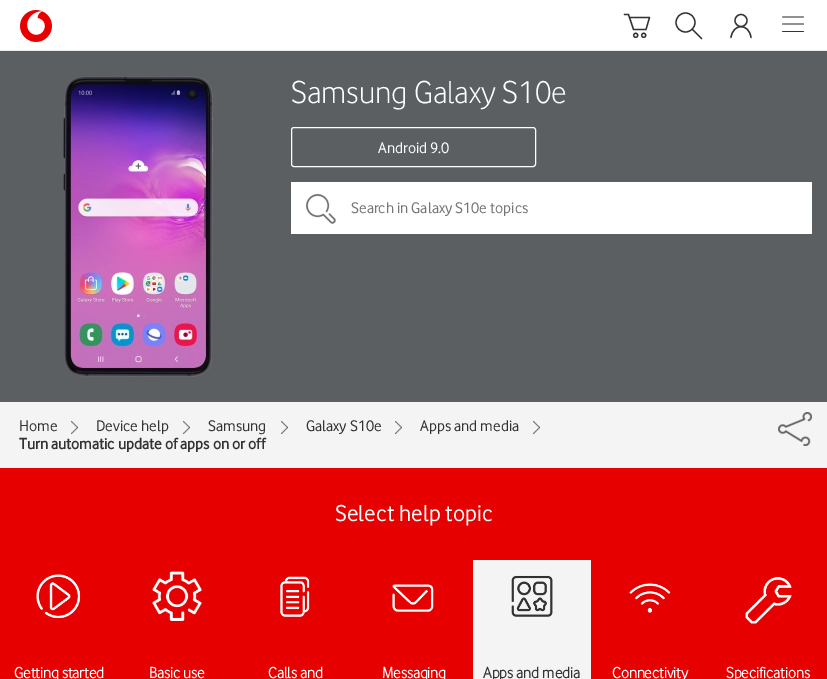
%!PS
<< /PageSize [827 679] >> setpagedevice
/rgb { 3 { 255 div 3 1 roll } repeat setrgbcolor } def
/font { [ exch dup neg 0 0 3 -1 roll 0 0 ] selectfont } def
/circle { newpath 0 360 arc closepath } def
/roundrect { 5 dict begin { /r /h /w /y /x } { exch def } forall
  x r add y moveto x w add y 2 copy h add r arct x w add y h add x 1 index r arct
  x y h add x y r arct x y 2 copy exch w add exch r arct closepath end } def
/picture { 5 dict begin { /h /w /y /x /name } { exch def } forall
  gsave x y translate w h scale
  w h 8 [w 0 0 h 0 0] name (r) file false 3 colorimage grestore end } def
0 679 translate 1 -1 scale
4 setmiterlimit
255 255 255 rgb
0 0 827 679 rectfill
235 235 235 rgb
0 50 827 1 rectfill
(img/1.rgb) 20 10 32 32 picture
51 51 51 rgb
1.3 setlinewidth
1 setlinecap
1 setlinejoin
624.5 14.5 moveto 628.5 14.5 lineto 633.5 29.5 lineto 646 29.5 lineto 649.5 17.5 lineto 629.5 17.5 lineto stroke
0 setlinecap
0 setlinejoin
635.7 35.3 2 circle stroke
643.7 35.3 2 circle stroke
685.5 22.5 9.5 circle stroke
1 setlinecap
1 setlinejoin
692.5 29.5 moveto 701.5 38.5 lineto 751 37.5 moveto 749 23 733 23 731 37.5 curveto stroke
0 setlinecap
0 setlinejoin
741 20.5 6 circle stroke
0.8 setlinewidth
1 setlinecap
803.5 31.5 moveto 782.5 31.5 lineto 803.5 24 moveto 782.5 24 lineto 803.5 17 moveto 782.5 17 lineto stroke
92 95 97 rgb
0 51 827 351 rectfill
(img/2.rgb) 63 76 150 301 picture
255 255 255 rgb
1 setlinewidth
0 setlinecap
291.5 127.5 244 39 2.5 roundrect stroke
291 182 521 52 rectfill
(img/3.rgb) 306 194 30 30 picture
244 244 244 rgb
0 402 827 66 rectfill
(img/4.rgb) 71 421 7 13 picture
(img/4.rgb) 183 421 7 13 picture
(img/4.rgb) 281 421 7 13 picture
(img/4.rgb) 395 421 7 13 picture
(img/4.rgb) 533 421 7 13 picture
(img/5.rgb) 778 412 34 34 picture
230 0 0 rgb
0 468 827 211 rectfill
(img/6.rgb) 36 574 45 45 picture
(img/7.rgb) 152 571 50 50 picture
(img/8.rgb) 280 576 30 41 picture
(img/9.rgb) 392 584 42 28 picture
244 244 244 rgb
473 560 118 119 rectfill
(img/10.rgb) 511 575 42 42 picture
(img/11.rgb) 629 583 42 30 picture
(img/12.rgb) 745 576 47 48 picture
/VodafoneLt-Regular 33 font
255 255 255 rgb
291 103 moveto (Samsung Galaxy S10e) show
/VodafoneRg-Regular 16 font
378 153 moveto (Android 9.0) show
117 117 117 rgb
351 213 moveto (Search in Galaxy S10e topics) show
51 51 51 rgb
[
  [(Home) 19 431]
  [(Device help) 96 431]
  [(Samsung) 208 431]
  [(Galaxy S10e) 306 431]
  [(Apps and media) 420 431]
] { aload pop moveto show } forall
/VodafoneRg-Bold 16 font
19 449 moveto (Turn automatic update of apps on or off) show
/VodafoneRg-Regular 24 font
255 255 255 rgb
335 521 moveto (Select help topic) show
/VodafoneLt-Bold 16 font
[
  [(Getting started) 14 678]
  [(Basic use) 149 678]
  [(Calls and) 268 678]
  [(Messaging) 382 678]
] { aload pop moveto show } forall
51 51 51 rgb
483 678 moveto (Apps and media) show
255 255 255 rgb
612 678 moveto (Connectivity) show
726 678 moveto (Specifications) show
showpage
